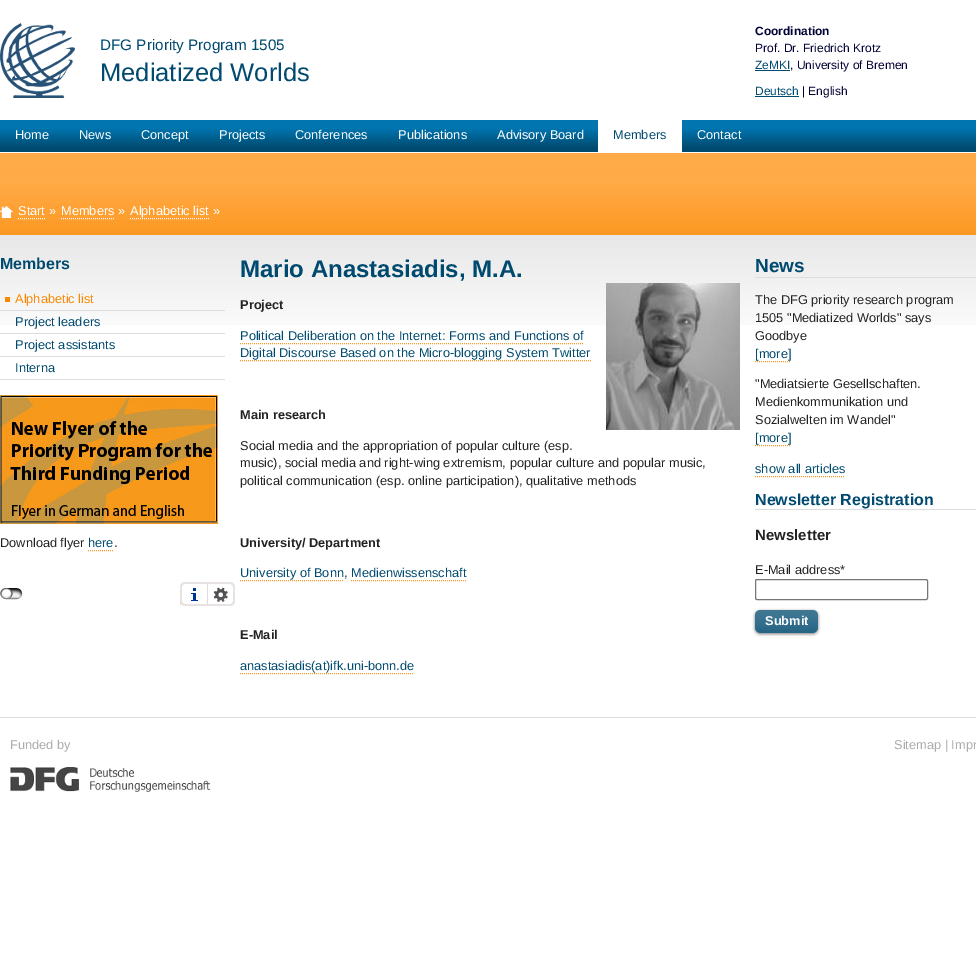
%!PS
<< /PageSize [976 964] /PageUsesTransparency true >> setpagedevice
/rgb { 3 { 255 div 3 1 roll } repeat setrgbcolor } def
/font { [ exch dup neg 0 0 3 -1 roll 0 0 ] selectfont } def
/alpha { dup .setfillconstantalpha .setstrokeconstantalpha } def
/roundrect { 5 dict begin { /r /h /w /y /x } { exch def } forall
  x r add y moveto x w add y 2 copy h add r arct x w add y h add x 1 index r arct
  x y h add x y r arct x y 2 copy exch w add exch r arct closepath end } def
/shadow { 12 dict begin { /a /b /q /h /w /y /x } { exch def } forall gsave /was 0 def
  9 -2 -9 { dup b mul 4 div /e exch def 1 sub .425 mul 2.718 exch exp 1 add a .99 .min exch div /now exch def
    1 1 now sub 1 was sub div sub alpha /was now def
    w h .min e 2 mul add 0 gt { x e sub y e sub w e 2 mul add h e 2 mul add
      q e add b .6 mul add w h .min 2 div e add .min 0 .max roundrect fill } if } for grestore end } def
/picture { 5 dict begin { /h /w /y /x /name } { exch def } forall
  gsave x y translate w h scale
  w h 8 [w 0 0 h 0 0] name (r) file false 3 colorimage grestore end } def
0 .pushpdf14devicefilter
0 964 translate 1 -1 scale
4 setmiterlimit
255 255 255 rgb
0 0 976 964 rectfill
(img/1.rgb) 0 23 75 75 picture
[
  [755 70 35 1 0 74 111]
  [755 96 44 1 0 74 111]
  [0 147 976 5 0 74 111]
] { aload pop rgb rectfill } forall
(img/2.rgb) 0 120 976 27 picture
255 255 255 rgb
598 120 84 32 rectfill
(img/3.rgb) 0 153 976 82 picture
(img/4.rgb) 0 206 13 12 picture
[1 1] 0 setdash
18 218.5 moveto 45 218.5 lineto stroke
61 218.5 moveto 114 218.5 lineto stroke
130 218.5 moveto 209 218.5 lineto stroke
(img/5.rgb) 0 235 976 90 picture
[
  [5 297 5 5 249 137 4]
  [0 310 225 1 221 221 221]
  [0 333 225 1 221 221 221]
  [0 356 225 1 221 221 221]
  [0 379 225 1 221 221 221]
] { aload pop rgb rectfill } forall
(img/6.rgb) 0 395 218 129 picture
252 153 35 rgb
88 550.5 moveto 114 550.5 lineto stroke
(img/7.rgb) 0 588 23 12 picture
180 603.5 moveto 207 603.5 lineto stroke
255 255 255 rgb
185 584 moveto 207 584 lineto 207 604 lineto 185 604 lineto 183.5 604 182 602.5 182 601 curveto 182 587 lineto 182 585.5 183.5 584 185 584 curveto closepath fill
(img/8.rgb) 191 588 7 13 picture
231 227 227 rgb
185 582 moveto 207 582 lineto 207 606 lineto 185 606 lineto 182 606 180 604 180 601 curveto 180 587 lineto 180 584 182 582 185 582 curveto closepath 185 584 moveto 207 584 lineto 207 604 lineto 185 604 lineto 183.5 604 182 602.5 182 601 curveto 182 587 lineto 182 585.5 183.5 584 185 584 curveto closepath eofill
(img/9.rgb) 213 587 15 15 picture
207 582 moveto 208 584 lineto 230 584 lineto 231 584 231.5 584.5 232 585 curveto 233.5 583.5 lineto 233 582.5 231.5 582 230 582 curveto closepath fill
235 601 moveto 235 587 lineto 235 585.5 234.5 584 233.5 583.5 curveto 232 585 lineto 232.5 585.5 233 586 233 587 curveto 233 601 lineto 233 602 232.5 602.5 232 603 curveto 233.5 604.5 lineto 234.5 604 235 602.5 235 601 curveto closepath fill
230 606 moveto 231.5 606 233 605.5 233.5 604.5 curveto 232 603 lineto 231.5 603.5 231 604 230 604 curveto 208 604 lineto 207 606 lineto closepath fill
221 221 221 rgb
207 582 moveto 207 606 lineto 208 604 lineto 208 584 lineto closepath fill
(img/10.rgb) 606 283 134 147 picture
252 153 35 rgb
240 343.5 moveto 584 343.5 lineto stroke
240 360.5 moveto 591 360.5 lineto stroke
240 580.5 moveto 344 580.5 lineto stroke
351 580.5 moveto 466 580.5 lineto stroke
240 673.5 moveto 414 673.5 lineto stroke
221 221 221 rgb
755 277 221 1 rectfill
252 153 35 rgb
755 361.5 moveto 791 361.5 lineto stroke
755 445.5 moveto 791 445.5 lineto stroke
755 476.5 moveto 845 476.5 lineto stroke
221 221 221 rgb
755 509 221 1 rectfill
118 118 118 rgb
[] 0 setdash
755.5 579.5 172 20 1.5 roundrect stroke
0 0 0 rgb
755 611 63 23 5 1.5 0.5 shadow
0 74 111 rgb
755 610 63 23 5 roundrect fill
(img/11.rgb) 755 610 63 23 picture
221 221 221 rgb
0 717 976 1 rectfill
(img/12.rgb) 10 767 200 25 picture
/LiberationSans-Regular 15.25 font
0 74 111 rgb
100 50 moveto (DFG Priority Program 1505) show
/LiberationSans-Regular 25.5 font
100 81 moveto (Mediatized Worlds) show
/LiberationSans-Bold 12 font
0 0 52 rgb
755 35 moveto (Coordination) show
/LiberationSans-Regular 12 font
755 52 moveto (Prof. Dr. Friedrich Krotz) show
0 74 111 rgb
755 69 moveto (ZeMKI) show
0 0 52 rgb
790 69 moveto (, University of Bremen) show
0 74 111 rgb
755 95 moveto (Deutsch) show
0 0 52 rgb
802 95 moveto (| English) show
/LiberationSans-Regular 12.8 font
255 255 255 rgb
[
  [(Home) 15 139]
  [(News) 79 139]
  [(Concept) 141 139]
  [(Projects) 219 139]
  [(Conferences) 295 139]
  [(Publications) 398 139]
  [(Advisory Board) 497 139]
] { aload pop moveto show } forall
0 74 111 rgb
613 139 moveto (Members) show
255 255 255 rgb
[
  [(Contact) 697 139]
  [(Start ») 18 215]
  [(Members ») 61 215]
  [(Alphabetic list ») 130 215]
] { aload pop moveto show } forall
/LiberationSans-Bold 16 font
0 74 111 rgb
0 269 moveto (Members) show
/LiberationSans-Regular 12.8 font
249 137 4 rgb
15 303 moveto (Alphabetic list) show
0 74 111 rgb
[
  [(Project leaders) 15 326]
  [(Project assistants) 15 349]
  [(Interna) 15 372]
] { aload pop moveto show } forall
34 34 34 rgb
0 547 moveto (Download flyer) show
0 74 111 rgb
88 547 moveto (here) show
34 34 34 rgb
114 547 moveto (.) show
/LiberationSans-Bold 24 font
0 74 111 rgb
240 277 moveto (Mario Anastasiadis, M.A.) show
/LiberationSans-Bold 12.8 font
34 34 34 rgb
240 309 moveto (Project) show
/LiberationSans-Regular 12.8 font
0 74 111 rgb
240 340 moveto (Political Deliberation on the Internet: Forms and Functions of) show
240 357 moveto (Digital Discourse Based on the Micro-blogging System Twitter) show
/LiberationSans-Bold 12.8 font
34 34 34 rgb
240 419 moveto (Main research) show
/LiberationSans-Regular 12.8 font
[
  [(Social media and the appropriation of popular culture \(esp.) 240 450]
  [(music\), social media and right-wing extremism, popular culture and popular music,) 240 467]
  [(political communication \(esp. online participation\), qualitative methods) 240 485]
] { aload pop moveto show } forall
/LiberationSans-Bold 12.8 font
240 547 moveto (University/ Department) show
/LiberationSans-Regular 12.8 font
0 74 111 rgb
240 577 moveto (University of Bonn) show
34 34 34 rgb
344 577 moveto (,) show
0 74 111 rgb
351 577 moveto (Medienwissenschaft) show
/LiberationSans-Bold 12.8 font
34 34 34 rgb
240 639 moveto (E-Mail) show
/LiberationSans-Regular 12.8 font
0 74 111 rgb
240 670 moveto (anastasiadis\(at\)ifk.uni-bonn.de) show
/LiberationSans-Bold 19 font
755 272 moveto (News) show
/LiberationSans-Regular 12.8 font
34 34 34 rgb
[
  [(The DFG priority research program) 755 304]
  [(1505 "Mediatized Worlds" says) 755 322]
  [(Goodbye) 755 340]
] { aload pop moveto show } forall
0 74 111 rgb
755 358 moveto ([more]) show
34 34 34 rgb
[
  [("Mediatsierte Gesellschaften.) 755 388]
  [(Medienkommunikation und) 755 406]
  [(Sozialwelten im Wandel") 755 424]
] { aload pop moveto show } forall
0 74 111 rgb
755 442 moveto ([more]) show
755 473 moveto (show all articles) show
/LiberationSans-Bold 16 font
755 505 moveto (Newsletter Registration) show
/LiberationSans-Bold 15 font
34 34 34 rgb
755 540 moveto (Newsletter) show
/LiberationSans-Regular 12.8 font
755 574 moveto (E-Mail address*) show
/LiberationSans-Bold 12.8 font
255 255 255 rgb
765 625 moveto (Submit) show
/LiberationSans-Regular 12.8 font
170 170 170 rgb
10 749 moveto (Funded by) show
894 749 moveto (Sitemap | Impr) show
.poppdf14devicefilter showpage
